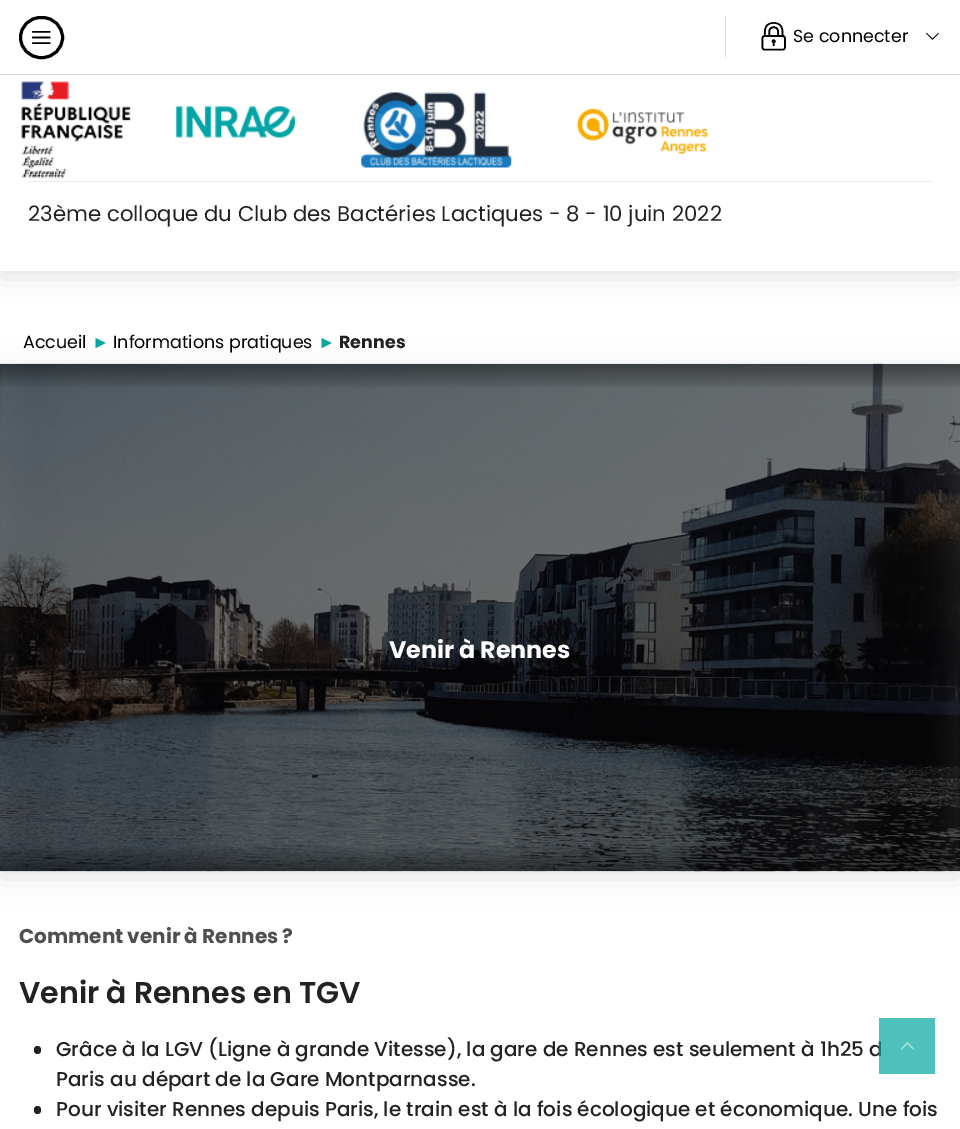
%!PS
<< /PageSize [960 1129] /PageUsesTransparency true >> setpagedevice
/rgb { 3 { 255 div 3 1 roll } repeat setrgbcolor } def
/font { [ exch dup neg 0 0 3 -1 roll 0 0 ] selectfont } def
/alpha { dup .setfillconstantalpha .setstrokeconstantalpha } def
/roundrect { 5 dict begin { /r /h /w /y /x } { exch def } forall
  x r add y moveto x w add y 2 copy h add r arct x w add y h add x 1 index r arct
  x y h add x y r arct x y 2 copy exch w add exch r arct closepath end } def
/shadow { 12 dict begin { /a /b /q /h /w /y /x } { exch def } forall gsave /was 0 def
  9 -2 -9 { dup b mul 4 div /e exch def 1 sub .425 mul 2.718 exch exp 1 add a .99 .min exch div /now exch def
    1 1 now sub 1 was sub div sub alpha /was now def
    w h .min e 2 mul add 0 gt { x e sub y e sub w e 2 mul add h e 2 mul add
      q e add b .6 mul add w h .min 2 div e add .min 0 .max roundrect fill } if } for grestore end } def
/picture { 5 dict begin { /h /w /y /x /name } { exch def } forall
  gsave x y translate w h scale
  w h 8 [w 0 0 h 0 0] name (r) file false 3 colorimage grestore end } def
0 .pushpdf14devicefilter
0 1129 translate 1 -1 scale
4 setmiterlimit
255 255 255 rgb
0 0 960 1129 rectfill
gsave
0 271 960 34 rectclip
227 227 227 rgb
0 6 960 272 0 13 1 shadow
grestore
216 216 216 rgb
0 74 960 1 rectfill
0 0 0 rgb
3 setlinewidth
20.5 17.5 42 40 20 roundrect stroke
(img/1.rgb) 31 31 20 13 picture
216 216 216 rgb
725 58 moveto 725 16 lineto 726 16 lineto 726 56 lineto closepath fill
(img/2.rgb) 761 22 25 29 picture
(img/3.rgb) 926 32 13 8 picture
(img/4.rgb) 21 81 275 97 picture
(img/5.rgb) 361 92 151 76 picture
(img/6.rgb) 576 108 133 46 picture
234 234 234 rgb
28 181 905 1 rectfill
227 227 227 rgb
0 370 960 508 0 13 1 shadow
(img/7.rgb) 0 363 960 509 picture
34 34 34 rgb
34 1046 7 8 3.5 roundrect fill
34 1106 7 8 3.5 roundrect fill
/Poppins-Regular 17.5 font
0 0 0 rgb
793 42 moveto (Se connecter) show
/Poppins-Regular 21.25 font
34 34 34 rgb
28 221 moveto (23ème colloque du Club des Bactéries Lactiques - 8 - 10 juin 2022) show
/Poppins-Regular 17.5 font
0 0 0 rgb
23 348 moveto (Accueil) show
/LiberationSans-Regular 17.5 font
4 166 159 rgb
92 348 moveto (►) show
/Poppins-Regular 17.5 font
0 0 0 rgb
113 348 moveto (Informations pratiques) show
/LiberationSans-Bold 17.5 font
4 166 159 rgb
318 348 moveto (►) show
/Poppins-Bold 17.5 font
34 34 34 rgb
339 348 moveto (Rennes) show
/Poppins-Bold 23.75 font
255 255 255 rgb
389 658 moveto (Venir à Rennes) show
/Poppins-Bold 20 font
79 79 79 rgb
19 943 moveto (Comment venir à Rennes ?) show
/Poppins-SemiBold 30 font
34 34 34 rgb
19 1003 moveto (Venir à Rennes en TGV) show
/Poppins-Medium 20 font
[
  [(Grâce à la LGV \(Ligne à grande Vitesse\), la gare de Rennes est seulement à 1h25 d) 56 1056]
  [(Paris au départ de la Gare Montparnasse.) 56 1086]
  [(Pour visiter Rennes depuis Paris, le train est à la fois écologique et économique. Une fois) 56 1116]
] { aload pop moveto show } forall
0.7 alpha
4 166 159 rgb
879 1018 56 56 rectfill
1 alpha
(img/8.rgb) 901 1041 13 9 picture
.poppdf14devicefilter showpage
